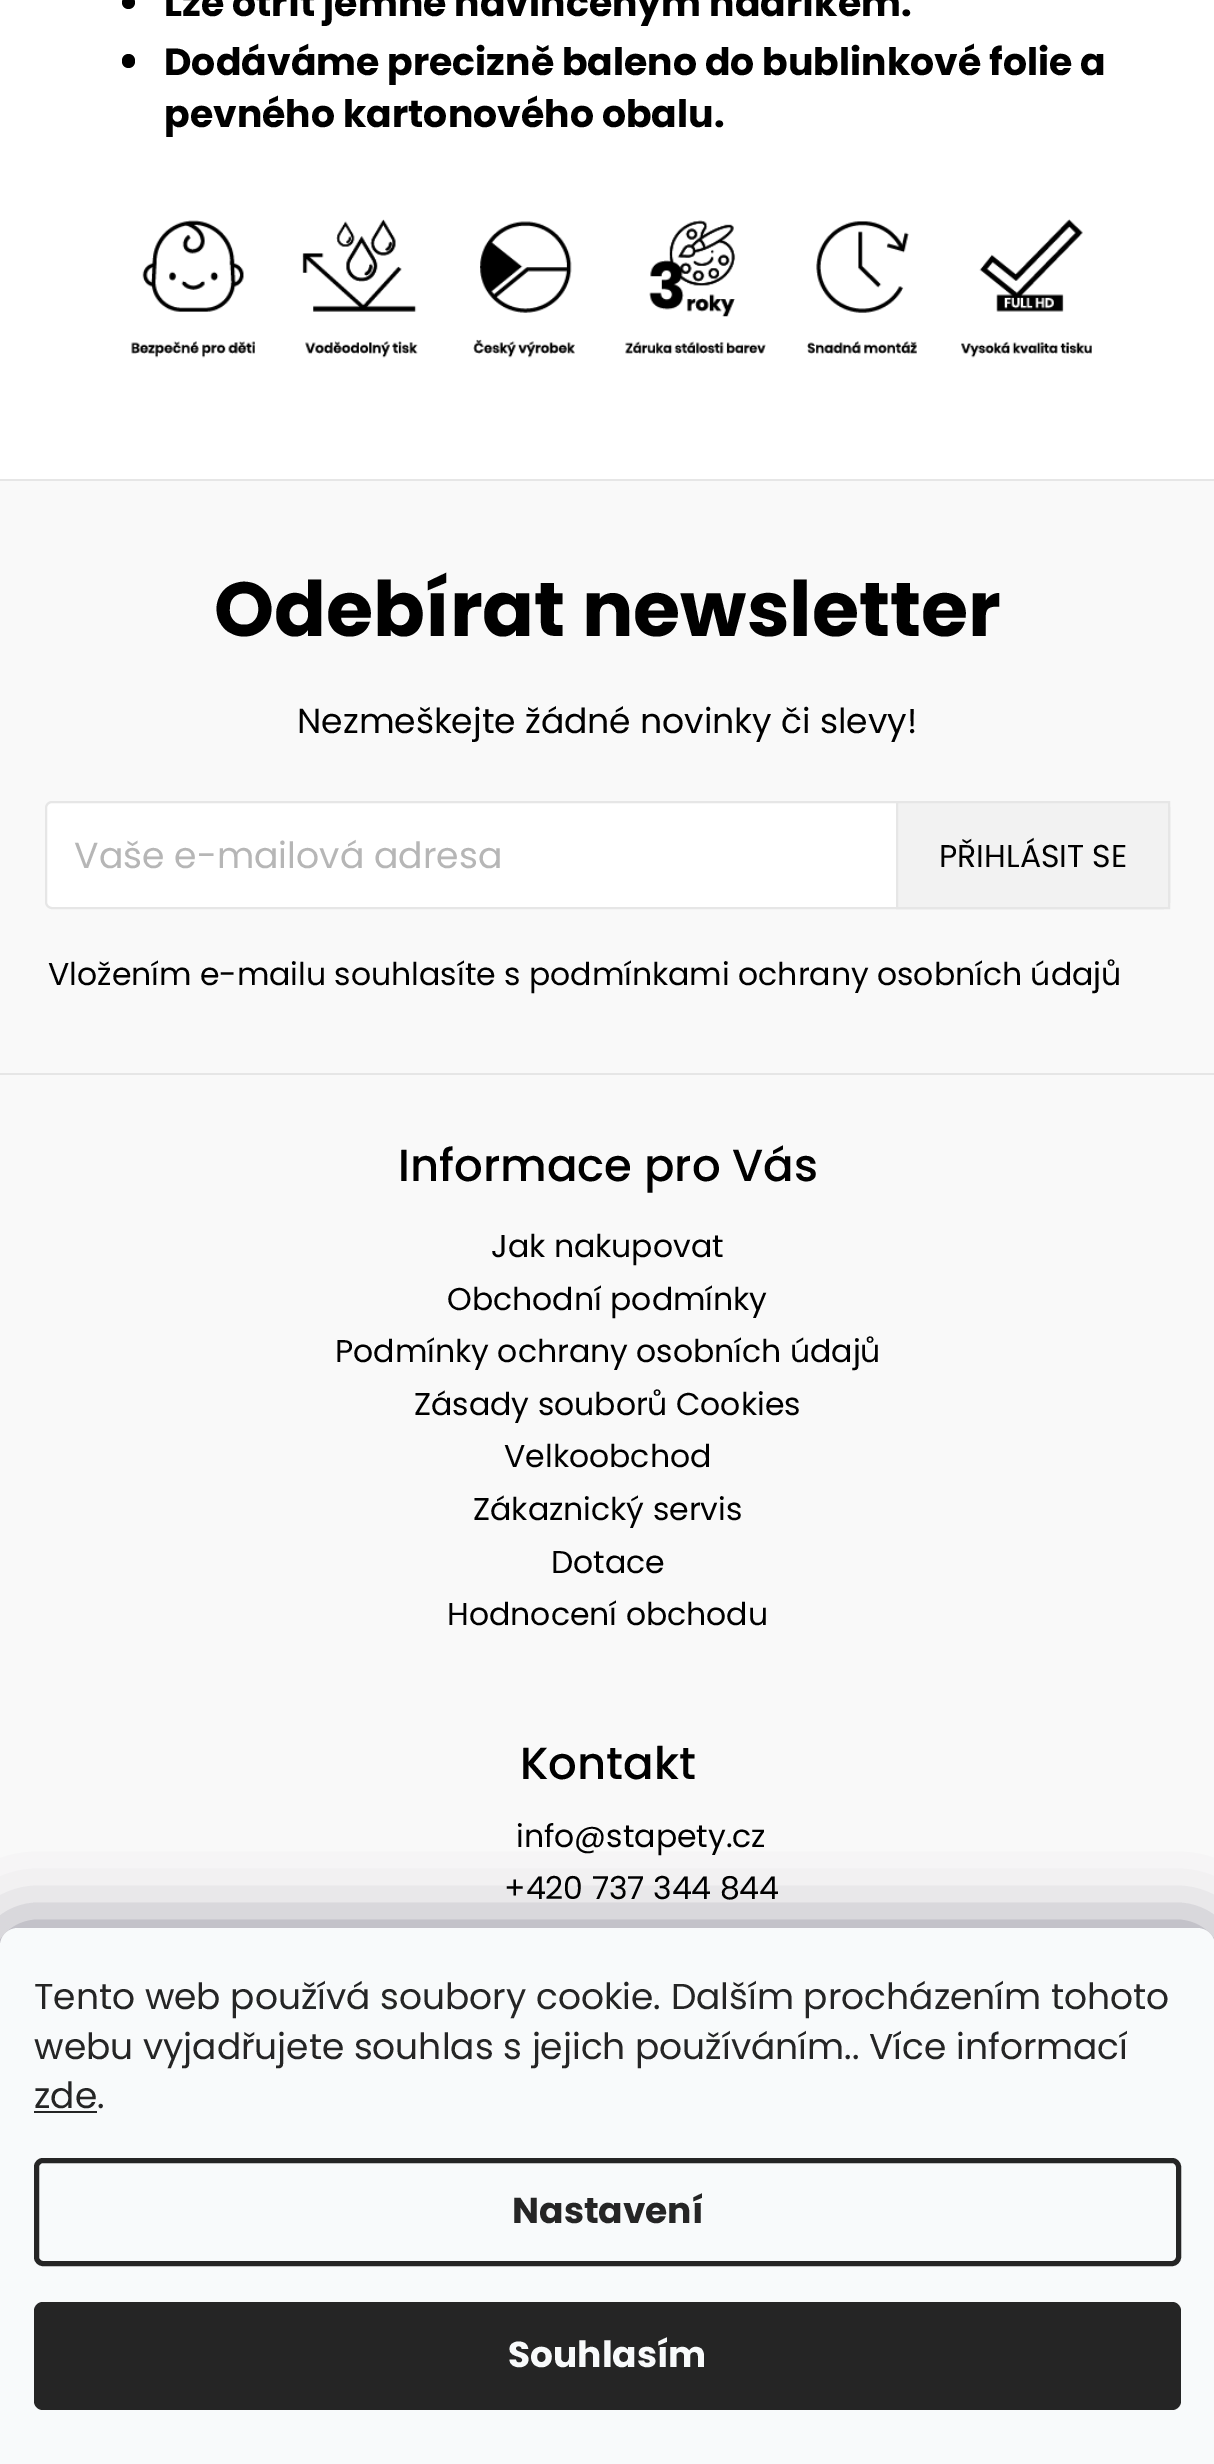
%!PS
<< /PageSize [1214 2464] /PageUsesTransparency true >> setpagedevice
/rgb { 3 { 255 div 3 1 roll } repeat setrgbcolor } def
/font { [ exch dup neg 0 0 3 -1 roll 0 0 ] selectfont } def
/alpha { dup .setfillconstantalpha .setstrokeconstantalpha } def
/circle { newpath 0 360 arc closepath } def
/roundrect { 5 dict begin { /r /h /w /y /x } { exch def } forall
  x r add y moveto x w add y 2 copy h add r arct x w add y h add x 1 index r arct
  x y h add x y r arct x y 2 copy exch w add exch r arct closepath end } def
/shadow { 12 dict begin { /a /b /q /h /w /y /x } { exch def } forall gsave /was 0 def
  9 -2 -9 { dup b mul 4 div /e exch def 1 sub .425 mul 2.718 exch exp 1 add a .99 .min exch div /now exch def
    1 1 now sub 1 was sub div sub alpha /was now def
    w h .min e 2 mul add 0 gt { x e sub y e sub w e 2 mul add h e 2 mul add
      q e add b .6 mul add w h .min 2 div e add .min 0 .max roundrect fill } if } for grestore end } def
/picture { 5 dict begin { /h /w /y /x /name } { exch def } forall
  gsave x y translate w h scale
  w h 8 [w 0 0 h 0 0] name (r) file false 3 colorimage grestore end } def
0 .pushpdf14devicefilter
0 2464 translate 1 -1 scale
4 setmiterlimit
255 255 255 rgb
0 0 1214 2464 rectfill
0 0 0 rgb
128.5 2.5 6.5 circle fill
122 54 13 14 6.5 roundrect fill
(img/1.rgb) 131 219 961 139 picture
[
  [0 481 1214 1465 249 249 249]
  [0 479 1214 2 230 230 230]
  [0 1073 1214 2 230 230 230]
] { aload pop rgb rectfill } forall
255 255 255 rgb
46 802 1123 106 6 roundrect gsave fill grestore
230 230 230 rgb
2 setlinewidth
stroke
242 242 242 rgb
897 802 moveto 1169 802 lineto 1169 908 lineto 897 908 lineto closepath gsave fill grestore
230 230 230 rgb
stroke
27 25 57 rgb
0 1928 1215 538 18 34 0.5 shadow
248 250 251 rgb
18 1928 moveto 1197 1928 lineto 1207 1928 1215 1936 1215 1946 curveto 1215 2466 lineto 0 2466 lineto 0 1946 lineto 0 1936 8 1928 18 1928 curveto closepath fill
37 37 37 rgb
34 2111 63 2 rectfill
5 setlinewidth
36.5 2160.5 1142 103 6.5 roundrect stroke
34 2302 1147 108 9 roundrect fill
/Poppins-Bold 37.8 font
0 0 0 rgb
164 16 moveto (Lze otřít jemně navlhčeným hadříkem.) show
164 75 moveto -0.25 0 32 (Dodáváme precizně baleno do bublinkové folie a) widthshow
164 127 moveto (pevného kartonového obalu.) show
/Poppins-Bold 76.5 font
214 636 moveto (Odebírat newsletter) show
/Poppins-Regular 34.6 font
297 733 moveto (Nezmeškejte žádné novinky či slevy!) show
/Poppins-Regular 36.25 font
182 182 182 rgb
74 868 moveto (Vaše e-mailová adresa) show
/Poppins-Regular 31.5 font
0 0 0 rgb
939 867 moveto (PŘIHLÁSIT SE) show
48 985 moveto (Vložením e-mailu souhlasíte s podmínkami ochrany osobních údajů) show
/Poppins-Medium 45 font
398 1181 moveto (Informace pro Vás) show
/Poppins-Regular 31.5 font
[
  [(Jak nakupovat) 491 1257]
  [(Obchodní podmínky) 447 1310]
  [(Podmínky ochrany osobních údajů) 335 1362]
  [(Zásady souborů Cookies) 414 1415]
  [(Velkoobchod) 504 1467]
  [(Zákaznický servis) 473 1520]
  [(Dotace) 551 1573]
  [(Hodnocení obchodu) 447 1625]
] { aload pop moveto show } forall
/Poppins-Medium 45 font
520 1779 moveto (Kontakt) show
/Poppins-Regular 31.5 font
516 1847 moveto (info@stapety.cz) show
504 1899 moveto (+420 737 344 844) show
/Poppins-Regular 36 font
37 37 37 rgb
[
  [(Tento web používá soubory cookie. Dalším procházením tohoto) 34 2009]
  [(webu vyjadřujete souhlas s jejich používáním.. Více informací) 34 2059]
  [(zde.) 34 2108]
] { aload pop moveto show } forall
/Poppins-Bold 36 font
512 2223 moveto (Nastavení) show
248 250 251 rgb
508 2367 moveto (Souhlasím) show
.poppdf14devicefilter showpage
